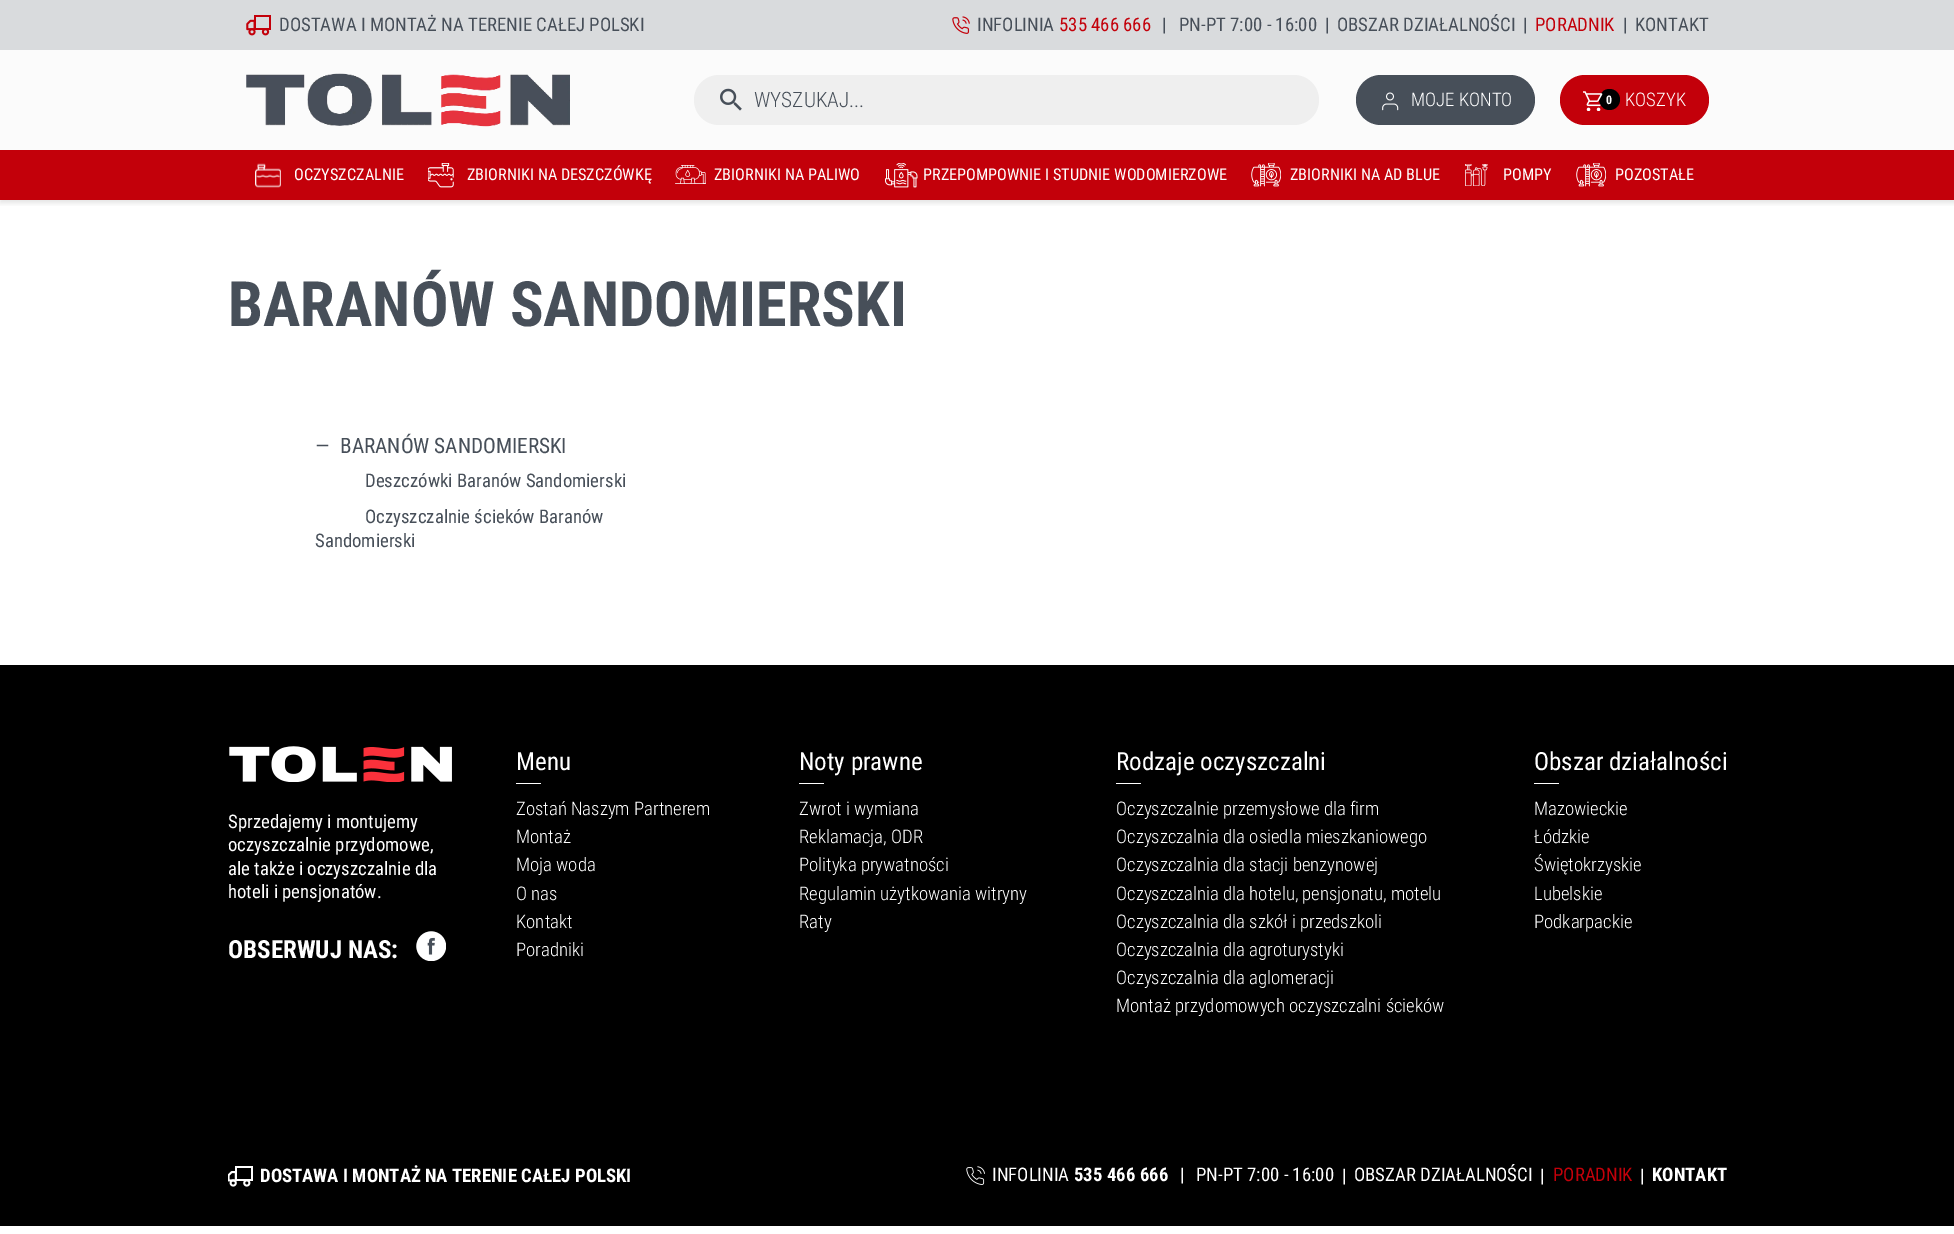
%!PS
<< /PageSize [1954 1234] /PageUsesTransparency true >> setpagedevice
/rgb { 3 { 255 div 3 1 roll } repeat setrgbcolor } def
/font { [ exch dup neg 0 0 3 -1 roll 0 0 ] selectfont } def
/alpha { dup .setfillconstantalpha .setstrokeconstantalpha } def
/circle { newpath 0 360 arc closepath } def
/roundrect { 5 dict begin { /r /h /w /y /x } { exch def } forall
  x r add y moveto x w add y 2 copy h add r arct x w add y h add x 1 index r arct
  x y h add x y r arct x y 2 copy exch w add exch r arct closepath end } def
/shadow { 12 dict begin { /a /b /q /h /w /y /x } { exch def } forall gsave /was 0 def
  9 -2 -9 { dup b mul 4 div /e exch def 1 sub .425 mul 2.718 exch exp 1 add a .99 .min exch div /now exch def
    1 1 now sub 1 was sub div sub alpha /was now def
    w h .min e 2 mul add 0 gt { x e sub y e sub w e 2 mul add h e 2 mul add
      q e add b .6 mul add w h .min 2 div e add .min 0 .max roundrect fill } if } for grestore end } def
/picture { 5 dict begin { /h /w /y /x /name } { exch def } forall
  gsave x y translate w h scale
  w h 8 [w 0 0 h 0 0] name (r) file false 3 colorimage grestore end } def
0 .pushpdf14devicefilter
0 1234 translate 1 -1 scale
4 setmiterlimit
251 251 251 rgb
0 0 1954 1234 rectfill
255 255 255 rgb
0 200 1954 465 rectfill
gsave
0 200 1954 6 rectclip
0 0 0 rgb
0 3 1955 200 0 3 0.11 shadow
grestore
217 219 221 rgb
0 0 1954 50 rectfill
(img/1.rgb) 246 15 25 21 picture
(img/2.rgb) 952 16 18 18 picture
(img/3.rgb) 246 73 324 54 picture
239 239 239 rgb
694 75 625 50 25 roundrect fill
(img/4.rgb) 720 88 22 23 picture
71 79 89 rgb
1356 75 179 50 25 roundrect fill
(img/5.rgb) 1382 92 17 19 picture
195 0 10 rgb
1560 75 149 50 25 roundrect fill
0 0 0 rgb
1609.5 99.5 10.5 circle fill
(img/6.rgb) 1583 91 20 20 picture
195 0 10 rgb
0 150 1954 50 rectfill
(img/7.rgb) 255 163 26 25 picture
(img/8.rgb) 428 163 26 25 picture
(img/9.rgb) 675 165 31 19 picture
(img/10.rgb) 885 163 33 25 picture
(img/11.rgb) 1251 163 30 24 picture
(img/12.rgb) 1465 164 23 22 picture
(img/11.rgb) 1576 163 30 24 picture
0 0 0 rgb
0 665 1954 561 rectfill
(img/13.rgb) 229 746 223 36 picture
(img/14.rgb) 416 931 30 30 picture
[
  [516 783 25 1 255 255 255]
  [799 783 25 1 255 255 255]
  [1116 783 25 1 255 255 255]
  [1534 783 25 1 255 255 255]
] { aload pop rgb rectfill } forall
(img/15.rgb) 228 1166 25 21 picture
(img/16.rgb) 966 1166 19 19 picture
0 1226 1954 8 rectfill
/RobotoCondensed-Regular 18.75 font
71 79 89 rgb
279 31 moveto (DOSTAWA I MONTAŻ NA TERENIE CAŁEJ POLSKI) show
977 31 moveto (INFOLINIA) show
195 0 10 rgb
1059 31 moveto (535 466 666) show
71 79 89 rgb
[
  [(|) 1162 31]
  [(PN-PT 7:00 - 16:00) 1179 31]
  [(|) 1325 31]
  [(OBSZAR DZIAŁALNOŚCI) 1337 31]
  [(|) 1523 31]
] { aload pop moveto show } forall
195 0 10 rgb
1535 31 moveto (PORADNIK) show
71 79 89 rgb
1623 31 moveto (|) show
1635 31 moveto (KONTAKT) show
/RobotoCondensed-Light 21.25 font
754 107 moveto (WYSZUKAJ...) show
/RobotoCondensed-Light 18.75 font
255 255 255 rgb
1411 106 moveto (MOJE KONTO) show
/RobotoCondensed-Bold 12 font
1606 104 moveto (0) show
/RobotoCondensed-Light 18.75 font
1625 106 moveto (KOSZYK) show
/RobotoCondensed-Regular 16.25 font
[
  [(OCZYSZCZALNIE) 294 180]
  [(ZBIORNIKI NA DESZCZÓWKĘ) 467 180]
  [(ZBIORNIKI NA PALIWO) 714 180]
  [(PRZEPOMPOWNIE I STUDNIE WODOMIERZOWE) 923 180]
  [(ZBIORNIKI NA AD BLUE) 1290 180]
  [(POMPY) 1503 180]
  [(POZOSTAŁE) 1615 180]
] { aload pop moveto show } forall
/RobotoCondensed-Bold 62.5 font
71 79 89 rgb
228 326 moveto (BARANÓW SANDOMIERSKI) show
/RobotoCondensed-Regular 21.25 font
315 453 moveto (—) show
340 453 moveto (BARANÓW SANDOMIERSKI) show
/RobotoCondensed-Regular 18.75 font
[
  [(Deszczówki Baranów Sandomierski) 365 487]
  [(Oczyszczalnie ścieków Baranów) 365 523]
  [(Sandomierski) 315 547]
] { aload pop moveto show } forall
255 255 255 rgb
[
  [(Sprzedajemy i montujemy) 228 828]
  [(oczyszczalnie przydomowe,) 228 851]
  [(ale także i oczyszczalnie dla) 228 875]
  [(hoteli i pensjonatów.) 228 898]
] { aload pop moveto show } forall
/RobotoCondensed-Bold 25 font
228 958 moveto (OBSERWUJ NAS:) show
/RobotoCondensed-Regular 25 font
516 770 moveto (Menu) show
/RobotoCondensed-Light 18.75 font
[
  [(Zostań Naszym Partnerem) 516 815]
  [(Montaż) 516 843]
  [(Moja woda) 516 871]
  [(O nas) 516 900]
  [(Kontakt) 516 928]
  [(Poradniki) 516 956]
] { aload pop moveto show } forall
/RobotoCondensed-Regular 25 font
799 770 moveto (Noty prawne) show
/RobotoCondensed-Light 18.75 font
[
  [(Zwrot i wymiana) 799 815]
  [(Reklamacja, ODR) 799 843]
  [(Polityka prywatności) 799 871]
  [(Regulamin użytkowania witryny) 799 900]
  [(Raty) 799 928]
] { aload pop moveto show } forall
/RobotoCondensed-Regular 25 font
1116 770 moveto (Rodzaje oczyszczalni) show
/RobotoCondensed-Light 18.75 font
[
  [(Oczyszczalnie przemysłowe dla firm) 1116 815]
  [(Oczyszczalnia dla osiedla mieszkaniowego) 1116 843]
  [(Oczyszczalnia dla stacji benzynowej) 1116 871]
  [(Oczyszczalnia dla hotelu, pensjonatu, motelu) 1116 900]
  [(Oczyszczalnia dla szkół i przedszkoli) 1116 928]
  [(Oczyszczalnia dla agroturystyki) 1116 956]
  [(Oczyszczalnia dla aglomeracji) 1116 984]
  [(Montaż przydomowych oczyszczalni ścieków) 1116 1012]
] { aload pop moveto show } forall
/RobotoCondensed-Regular 25 font
1534 770 moveto (Obszar działalności) show
/RobotoCondensed-Light 18.75 font
[
  [(Mazowieckie) 1534 815]
  [(Łódzkie) 1534 843]
  [(Świętokrzyskie) 1534 871]
  [(Lubelskie) 1534 900]
  [(Podkarpackie) 1534 928]
] { aload pop moveto show } forall
/RobotoCondensed-Bold 18.75 font
260 1182 moveto (DOSTAWA I MONTAŻ NA TERENIE CAŁEJ POLSKI) show
/RobotoCondensed-Regular 18.75 font
992 1181 moveto (INFOLINIA) show
/RobotoCondensed-Bold 18.75 font
1074 1181 moveto (535 466 666) show
/RobotoCondensed-Regular 18.75 font
[
  [(|) 1180 1181]
  [(PN-PT 7:00 - 16:00) 1196 1181]
  [(|) 1342 1182]
  [(OBSZAR DZIAŁALNOŚCI) 1354 1181]
  [(|) 1540 1182]
] { aload pop moveto show } forall
195 0 10 rgb
1553 1181 moveto (PORADNIK) show
255 255 255 rgb
1640 1182 moveto (|) show
/RobotoCondensed-Bold 18.75 font
1652 1181 moveto (KONTAKT) show
.poppdf14devicefilter showpage
